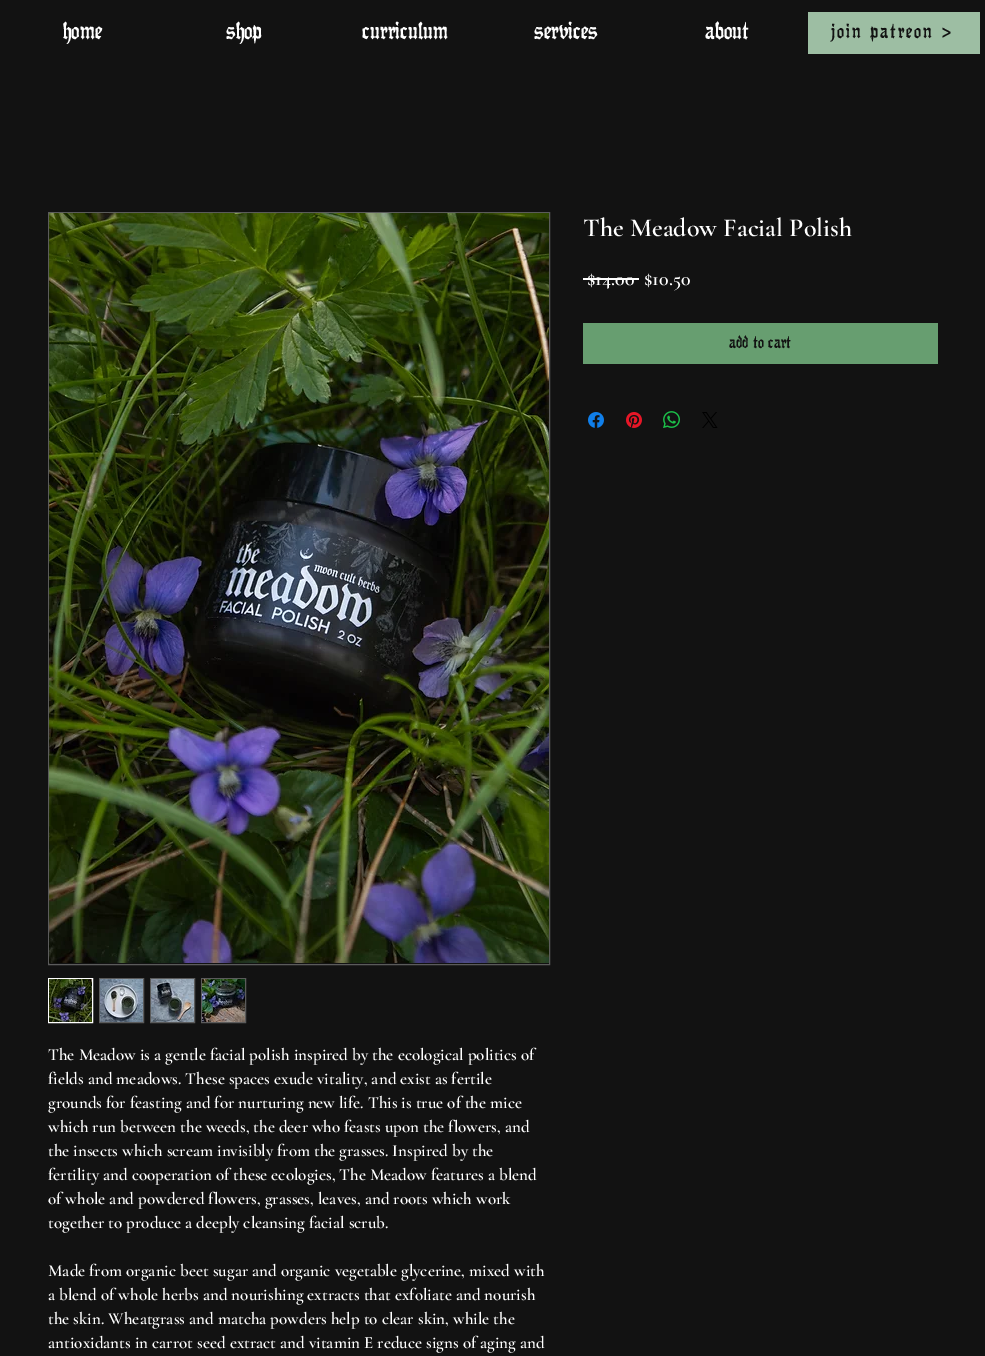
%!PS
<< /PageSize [985 1356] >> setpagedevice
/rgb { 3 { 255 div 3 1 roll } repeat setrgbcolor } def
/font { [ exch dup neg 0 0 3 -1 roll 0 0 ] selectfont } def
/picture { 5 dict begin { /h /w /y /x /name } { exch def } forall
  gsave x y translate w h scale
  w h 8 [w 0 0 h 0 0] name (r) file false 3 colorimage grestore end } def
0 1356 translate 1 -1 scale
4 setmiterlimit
18 18 18 rgb
0 0 985 1356 rectfill
[
  [808 12 172 42 157 190 163]
  [583 278 56 2 255 255 255]
  [583 323 355 41 103 158 112]
] { aload pop rgb rectfill } forall
(img/1.rgb) 588 412 16 16 picture
(img/2.rgb) 626 412 16 16 picture
(img/3.rgb) 663 411 17 17 picture
(img/4.rgb) 702 412 16 16 picture
91 91 91 rgb
48.5 212.5 501 752 rectstroke
(img/5.rgb) 49 213 500 750 picture
255 255 255 rgb
48.5 978.5 44 44 rectstroke
(img/6.rgb) 49 979 43 43 picture
91 91 91 rgb
99.5 978.5 44 44 rectstroke
(img/7.rgb) 100 979 43 43 picture
150.5 978.5 44 44 rectstroke
(img/8.rgb) 151 979 43 43 picture
201.5 978.5 44 44 rectstroke
(img/9.rgb) 202 979 43 43 picture
/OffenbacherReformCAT-Regular 24 font
255 255 255 rgb
[
  [(home) 63 39]
  [(shop) 226 39]
  [(curriculum) 362 39]
  [(services) 534 39]
  [(about) 705 39]
] { aload pop moveto show } forall
/OffenbacherReformCAT-Regular 20 font
18 18 18 rgb
830 38 moveto 2 0 (join patreon >) ashow
/CormorantGaramond-SemiBold 26 font
255 255 255 rgb
583 236 moveto (The Meadow Facial Polish) show
/CormorantGaramond-SemiBold 20 font
587 285 moveto ($14.00) show
644 285 moveto ($10.50) show
/OffenbacherReformCAT-Regular 17 font
18 18 18 rgb
729 348 moveto (add to cart) show
/CormorantGaramond-SemiBold 17 font
255 255 255 rgb
[
  [(The Meadow is a gentle facial polish inspired by the ecological politics of) 48 1060]
  [(fields and meadows. These spaces exude vitality, and exist as fertile) 48 1084]
  [(grounds for feasting and for nurturing new life. This is true of the mice) 48 1108]
  [(which run between the weeds, the deer who feasts upon the flowers, and) 48 1132]
  [(the insects which scream invisibly from the grasses. Inspired by the) 48 1156]
  [(fertility and cooperation of these ecologies, The Meadow features a blend) 48 1180]
  [(of whole and powdered flowers, grasses, leaves, and roots which work) 48 1204]
  [(together to produce a deeply cleansing facial scrub.) 48 1228]
  [(Made from organic beet sugar and organic vegetable glycerine, mixed with) 48 1276]
  [(a blend of whole herbs and nourishing extracts that exfoliate and nourish) 48 1300]
  [(the skin. Wheatgrass and matcha powders help to clear skin, while the) 48 1324]
  [(antioxidants in carrot seed extract and vitamin E reduce signs of aging and) 48 1348]
] { aload pop moveto show } forall
showpage
